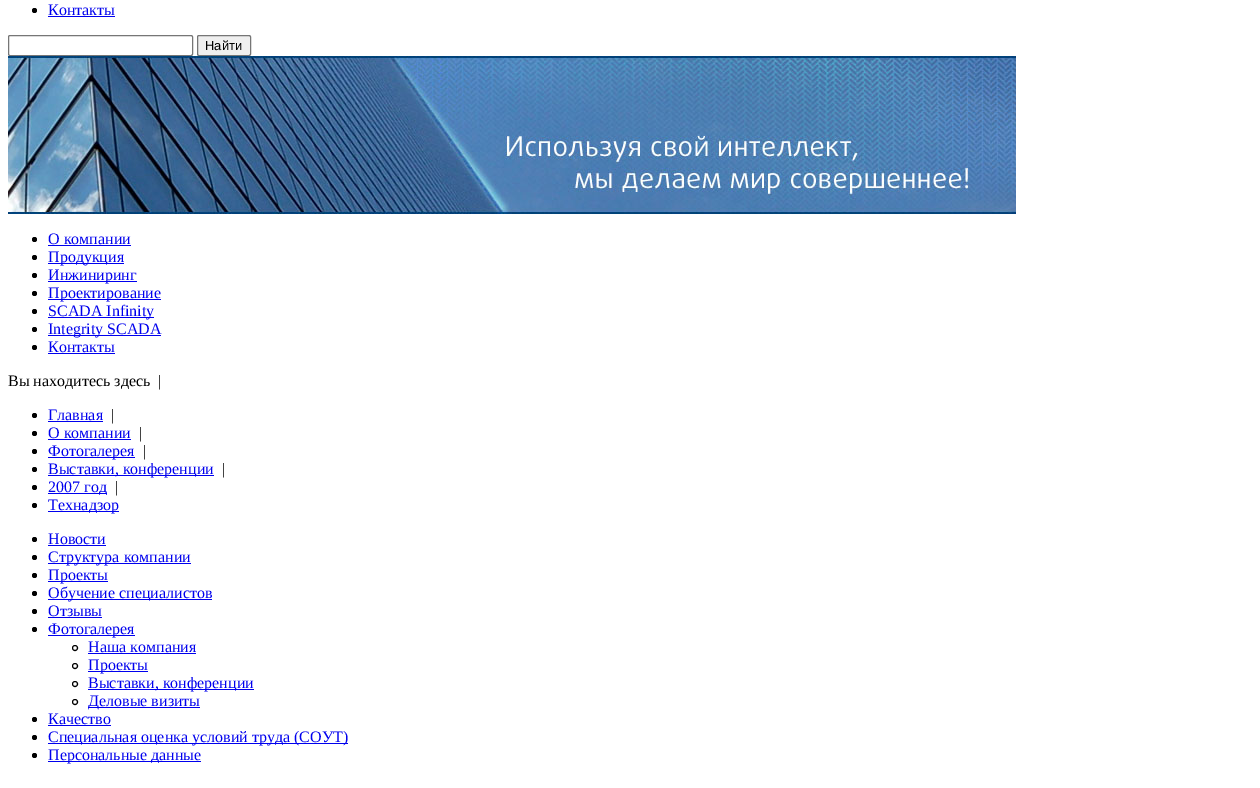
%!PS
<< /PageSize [1260 788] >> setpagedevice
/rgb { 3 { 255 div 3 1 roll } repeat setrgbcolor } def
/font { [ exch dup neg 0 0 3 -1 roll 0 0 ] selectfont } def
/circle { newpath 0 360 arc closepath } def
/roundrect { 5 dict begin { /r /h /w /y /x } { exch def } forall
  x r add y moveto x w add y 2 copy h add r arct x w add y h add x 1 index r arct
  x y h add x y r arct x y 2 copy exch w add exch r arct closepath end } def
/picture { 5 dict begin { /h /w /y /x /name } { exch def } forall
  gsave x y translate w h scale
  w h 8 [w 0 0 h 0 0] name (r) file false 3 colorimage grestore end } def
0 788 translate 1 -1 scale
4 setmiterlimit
255 255 255 rgb
0 0 1260 788 rectfill
0 0 0 rgb
34.5 10.5 2.5 circle fill
0 0 238 rgb
48 16 67 1 rectfill
118 118 118 rgb
8.5 35.5 184 20 1.5 roundrect stroke
239 239 239 rgb
197.5 35.5 53 20 1.5 roundrect gsave fill grestore
118 118 118 rgb
stroke
(img/1.rgb) 8 56 1008 158 picture
0 0 0 rgb
34.5 239.5 2.5 circle fill
0 0 238 rgb
48 245 83 1 rectfill
0 0 0 rgb
34.5 257.5 2.5 circle fill
0 0 238 rgb
48 263 76 1 rectfill
0 0 0 rgb
34.5 275.5 2.5 circle fill
0 0 238 rgb
48 281 89 1 rectfill
0 0 0 rgb
34.5 293.5 2.5 circle fill
0 0 238 rgb
48 299 113 1 rectfill
0 0 0 rgb
34.5 311.5 2.5 circle fill
0 0 238 rgb
48 317 106 1 rectfill
0 0 0 rgb
34.5 329.5 2.5 circle fill
0 0 238 rgb
48 335 113 1 rectfill
0 0 0 rgb
34.5 347.5 2.5 circle fill
0 0 238 rgb
48 353 67 1 rectfill
0 0 0 rgb
34.5 415.5 2.5 circle fill
0 0 238 rgb
48 421 55 1 rectfill
0 0 0 rgb
34.5 433.5 2.5 circle fill
0 0 238 rgb
48 439 83 1 rectfill
0 0 0 rgb
34.5 451.5 2.5 circle fill
0 0 238 rgb
48 457 87 1 rectfill
0 0 0 rgb
34.5 469.5 2.5 circle fill
0 0 238 rgb
48 475 166 1 rectfill
0 0 0 rgb
34.5 487.5 2.5 circle fill
0 0 238 rgb
48 493 59 1 rectfill
0 0 0 rgb
34.5 505.5 2.5 circle fill
0 0 238 rgb
48 511 71 1 rectfill
0 0 0 rgb
34.5 539.5 2.5 circle fill
0 0 238 rgb
48 545 58 1 rectfill
0 0 0 rgb
34.5 557.5 2.5 circle fill
0 0 238 rgb
48 563 143 1 rectfill
0 0 0 rgb
34.5 575.5 2.5 circle fill
0 0 238 rgb
48 581 60 1 rectfill
0 0 0 rgb
34.5 593.5 2.5 circle fill
0 0 238 rgb
48 599 164 1 rectfill
0 0 0 rgb
34.5 611.5 2.5 circle fill
0 0 238 rgb
48 617 54 1 rectfill
0 0 0 rgb
34.5 629.5 2.5 circle fill
0 0 238 rgb
48 635 87 1 rectfill
0 0 0 rgb
75 648 2.5 circle stroke
0 0 238 rgb
88 653 108 1 rectfill
0 0 0 rgb
75 666 2.5 circle stroke
0 0 238 rgb
88 671 60 1 rectfill
0 0 0 rgb
75 684 2.5 circle stroke
0 0 238 rgb
88 689 166 1 rectfill
0 0 0 rgb
75 702 2.5 circle stroke
0 0 238 rgb
88 707 112 1 rectfill
0 0 0 rgb
34.5 719.5 2.5 circle fill
0 0 238 rgb
48 725 63 1 rectfill
0 0 0 rgb
34.5 737.5 2.5 circle fill
0 0 238 rgb
48 743 300 1 rectfill
0 0 0 rgb
34.5 755.5 2.5 circle fill
0 0 238 rgb
48 761 153 1 rectfill
/LiberationSerif-Regular 16 font
48 15 moveto (Контакты) show
/LiberationSans-Regular 13 font
0 0 0 rgb
205 50 moveto (Найти) show
/LiberationSerif-Regular 16 font
0 0 238 rgb
[
  [(О компании) 48 244]
  [(Продукция) 48 262]
  [(Инжиниринг) 48 280]
  [(Проектирование) 48 298]
  [(SCADA Infinity) 48 316]
  [(Integrity SCADA) 48 334]
  [(Контакты) 48 352]
] { aload pop moveto show } forall
0 0 0 rgb
8 386 moveto (Вы находитесь здесь  |) show
0 0 238 rgb
48 420 moveto (Главная) show
0 0 0 rgb
111 420 moveto (|) show
0 0 238 rgb
48 438 moveto (О компании) show
0 0 0 rgb
139 438 moveto (|) show
0 0 238 rgb
48 456 moveto (Фотогалерея) show
0 0 0 rgb
143 456 moveto (|) show
0 0 238 rgb
48 474 moveto (Выставки, конференции) show
0 0 0 rgb
222 474 moveto (|) show
0 0 238 rgb
48 492 moveto (2007 год) show
0 0 0 rgb
115 492 moveto (|) show
0 0 238 rgb
[
  [(Технадзор) 48 510]
  [(Новости) 48 544]
  [(Структура компании) 48 562]
  [(Проекты) 48 580]
  [(Обучение специалистов) 48 598]
  [(Отзывы) 48 616]
  [(Фотогалерея) 48 634]
  [(Наша компания) 88 652]
  [(Проекты) 88 670]
  [(Выставки, конференции) 88 688]
  [(Деловые визиты) 88 706]
  [(Качество) 48 724]
  [(Специальная оценка условий труда \(СОУТ\)) 48 742]
  [(Персональные данные) 48 760]
] { aload pop moveto show } forall
showpage
